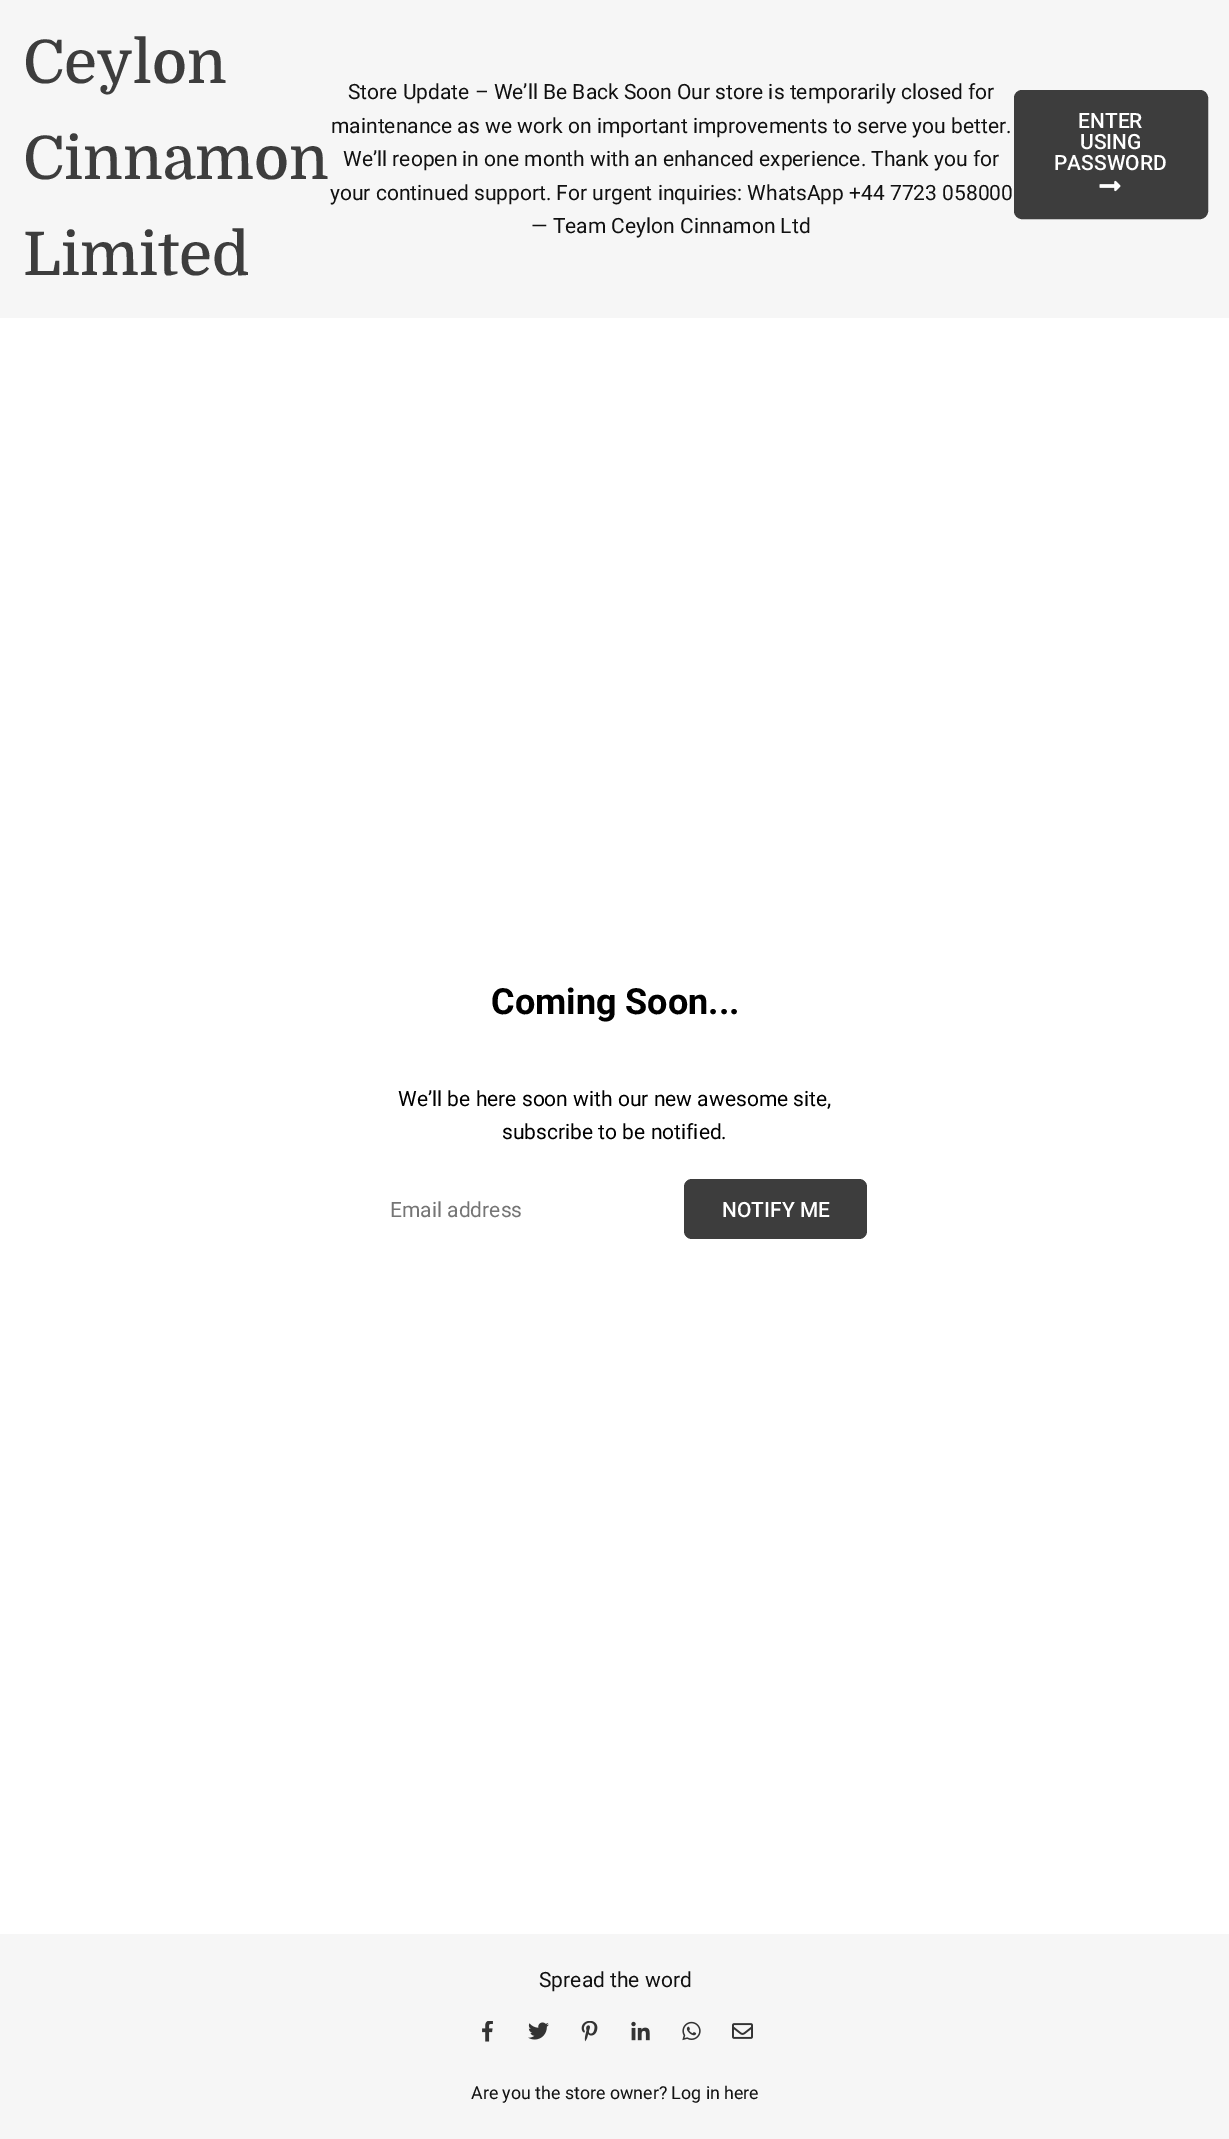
%!PS
<< /PageSize [1229 2139] >> setpagedevice
/rgb { 3 { 255 div 3 1 roll } repeat setrgbcolor } def
/font { [ exch dup neg 0 0 3 -1 roll 0 0 ] selectfont } def
/roundrect { 5 dict begin { /r /h /w /y /x } { exch def } forall
  x r add y moveto x w add y 2 copy h add r arct x w add y h add x 1 index r arct
  x y h add x y r arct x y 2 copy exch w add exch r arct closepath end } def
/picture { 5 dict begin { /h /w /y /x /name } { exch def } forall
  gsave x y translate w h scale
  w h 8 [w 0 0 h 0 0] name (r) file false 3 colorimage grestore end } def
0 2139 translate 1 -1 scale
4 setmiterlimit
255 255 255 rgb
0 0 1229 2139 rectfill
246 246 246 rgb
0 0 1229 318 rectfill
61 61 61 rgb
1015.5 91.5 191 126 6.5 roundrect gsave fill grestore
3 setlinewidth
stroke
(img/1.rgb) 1099 180 22 12 picture
684 1179 183 60 8 roundrect fill
246 246 246 rgb
0 1934 1229 205 rectfill
(img/2.rgb) 482 2021 11 21 picture
(img/3.rgb) 528 2022 21 18 picture
(img/4.rgb) 581 2021 17 21 picture
(img/5.rgb) 631 2021 19 20 picture
(img/6.rgb) 682 2021 19 20 picture
(img/7.rgb) 732 2023 21 16 picture
/Domine-Medium 60 font
61 61 61 rgb
[
  [(Ceylon) 23 83]
  [(Cinnamon) 23 179]
  [(Limited) 23 275]
] { aload pop moveto show } forall
/Roboto-Regular 21 font
17 17 17 rgb
[
  [(Store Update – We’ll Be Back Soon Our store is temporarily closed for) 348 99]
  [(maintenance as we work on important improvements to serve you better.) 331 133]
  [(We’ll reopen in one month with an enhanced experience. Thank you for) 343 166]
  [(your continued support. For urgent inquiries: WhatsApp +44 7723 058000) 330 200]
  [(— Team Ceylon Cinnamon Ltd) 531 233]
] { aload pop moveto show } forall
/Roboto-Medium 21 font
255 255 255 rgb
[
  [(ENTER) 1078 128]
  [(USING) 1080 149]
  [(PASSWORD) 1054 170]
] { aload pop moveto show } forall
/Roboto-Bold 36 font
0 0 0 rgb
491 1014 moveto (Coming Soon...) show
/Roboto-Regular 21 font
398 1106 moveto (We’ll be here soon with our new awesome site,) show
502 1139 moveto (subscribe to be notified.) show
117 117 117 rgb
390 1217 moveto (Email address) show
/Roboto-Medium 21 font
255 255 255 rgb
722 1217 moveto (NOTIFY ME) show
/Roboto-Regular 21 font
17 17 17 rgb
539 1987 moveto (Spread the word) show
/Roboto-Regular 17.8 font
471 2099 moveto (Are you the store owner? Log in here) show
showpage
